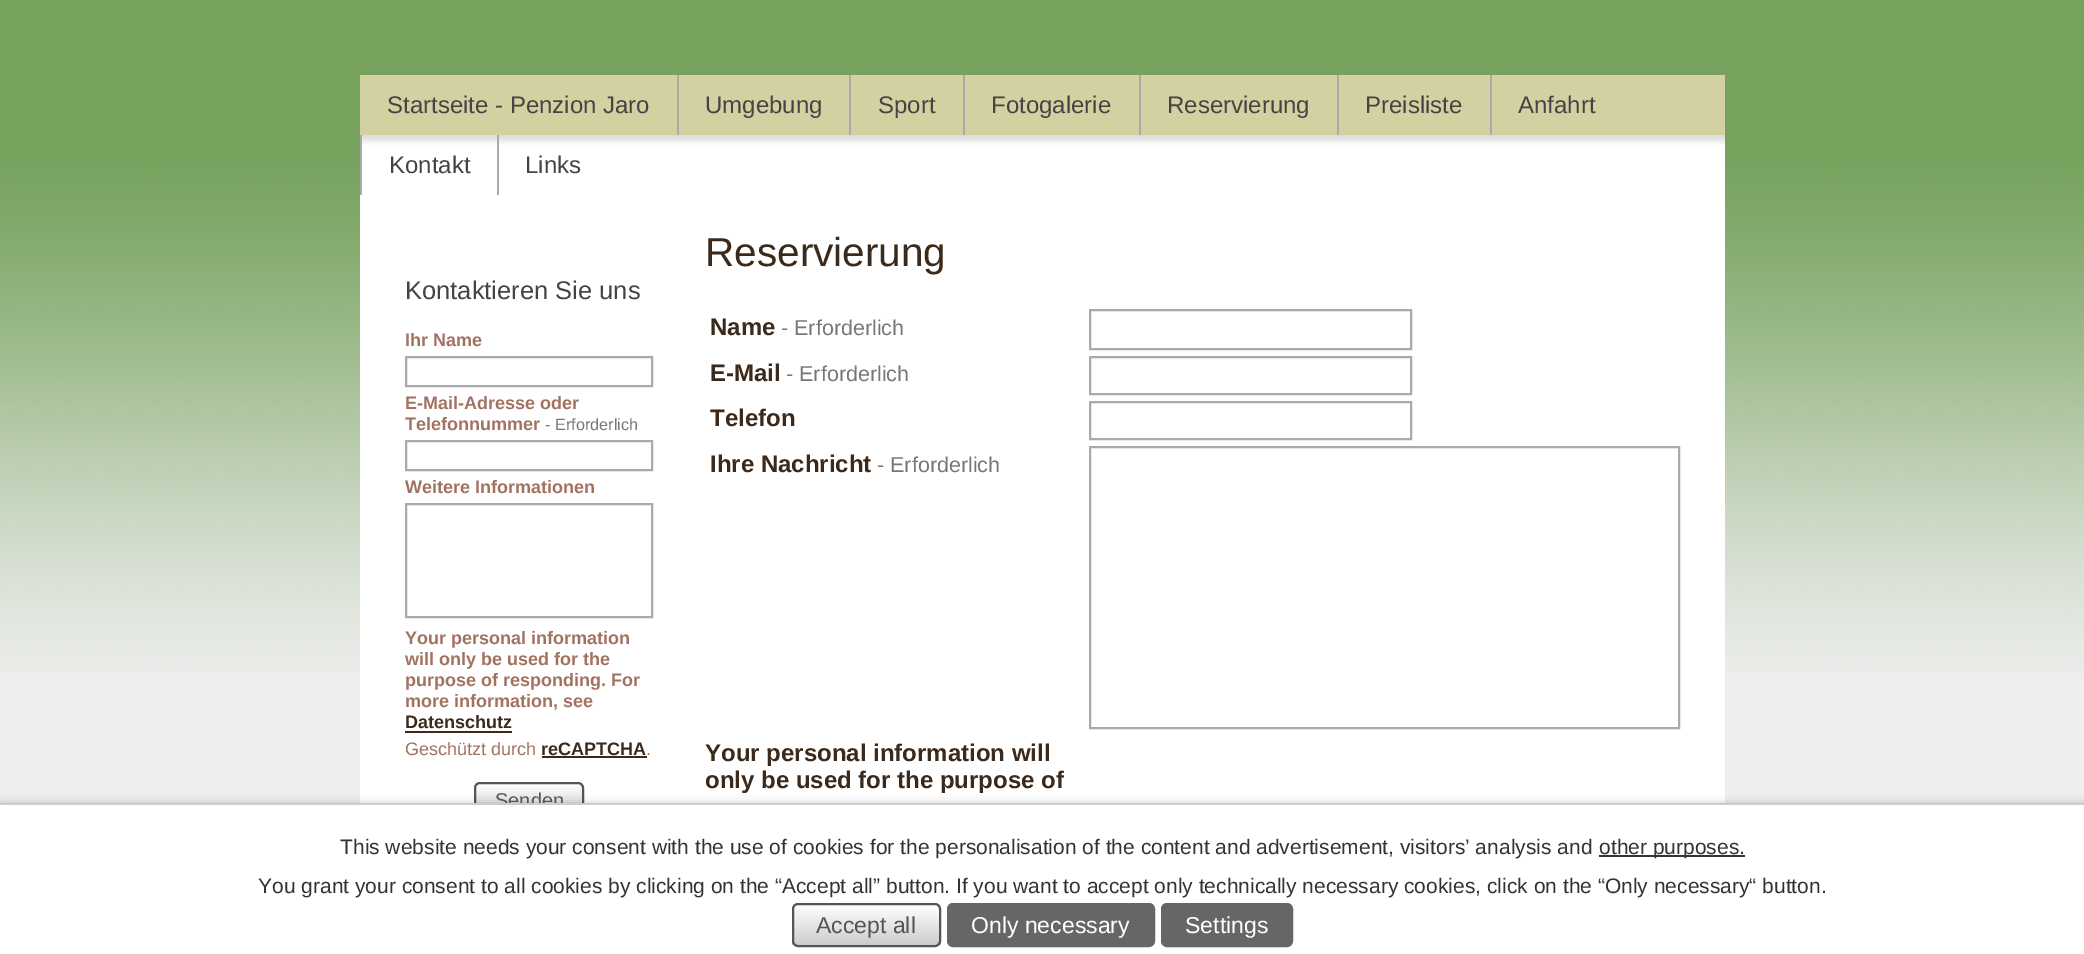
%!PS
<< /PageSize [2084 954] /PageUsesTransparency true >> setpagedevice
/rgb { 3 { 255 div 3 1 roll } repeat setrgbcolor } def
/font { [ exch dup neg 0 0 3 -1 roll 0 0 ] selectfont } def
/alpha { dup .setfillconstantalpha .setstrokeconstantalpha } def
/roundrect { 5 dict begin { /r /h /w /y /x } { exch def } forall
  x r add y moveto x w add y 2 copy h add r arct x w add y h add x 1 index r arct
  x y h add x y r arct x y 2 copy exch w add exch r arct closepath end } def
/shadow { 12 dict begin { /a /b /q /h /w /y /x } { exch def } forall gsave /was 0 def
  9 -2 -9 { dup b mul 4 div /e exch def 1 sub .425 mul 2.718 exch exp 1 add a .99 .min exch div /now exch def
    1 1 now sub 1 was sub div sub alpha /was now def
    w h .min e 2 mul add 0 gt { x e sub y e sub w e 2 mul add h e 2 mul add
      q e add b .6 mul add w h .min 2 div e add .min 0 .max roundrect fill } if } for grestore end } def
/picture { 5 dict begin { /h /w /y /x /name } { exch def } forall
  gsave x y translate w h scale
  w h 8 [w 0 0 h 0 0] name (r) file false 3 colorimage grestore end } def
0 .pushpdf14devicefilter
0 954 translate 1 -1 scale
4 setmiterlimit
238 238 238 rgb
0 0 2084 954 rectfill
(img/1.rgb) 0 0 2084 673 picture
[
  [360 75 1365 60 211 208 161]
  [677 75 2 60 170 170 170]
  [849 75 2 60 170 170 170]
  [963 75 2 60 170 170 170]
  [1139 75 2 60 170 170 170]
  [1337 75 2 60 170 170 170]
  [1490 75 2 60 170 170 170]
  [360 145 1365 658 255 255 255]
  [360 135 2 60 170 170 170]
] { aload pop rgb rectfill } forall
(img/2.rgb) 362 135 1363 10 picture
497 135 2 60 rectfill
2 setlinewidth
406 357 246 29 rectstroke
406 441 246 29 rectstroke
406 504 246 113 rectstroke
59 42 27 rgb
405 731 107 2 rectfill
542 756 105 2 rectfill
gsave
474 782 110 37 6 roundrect clip newpath
gsave 474 783 moveto 584 783 lineto 584 803 lineto 474 803 lineto closepath clip newpath
<< /ShadingType 2 /ColorSpace /DeviceRGB /Coords [476 783 476 818] /Extend [true true] /Function << /FunctionType 2 /Domain [0 1] /C0 [1 1 1] /C1 [0.8 0.8 0.8] /N 1 >> >> shfill grestore
grestore
85 85 85 rgb
475 783 108 35 5 roundrect stroke
170 170 170 rgb
1090 310 321 39 rectstroke
1090 357 321 37 rectstroke
1090 402 321 37 rectstroke
1090 447 589 281 rectstroke
0 0 0 rgb
0 803 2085 151 0 4 0.2 shadow
/LiberationSans-Regular 24 font
68 68 68 rgb
[
  [(Startseite - Penzion Jaro) 387 113]
  [(Umgebung) 705 113]
  [(Sport) 878 113]
  [(Fotogalerie) 991 113]
  [(Reservierung) 1167 113]
  [(Preisliste) 1365 113]
  [(Anfahrt) 1518 113]
  [(Kontakt) 389 173]
  [(Links) 525 173]
] { aload pop moveto show } forall
/LiberationSans-Regular 25.5 font
405 299 moveto (Kontaktieren Sie uns) show
/LiberationSans-Bold 18 font
162 114 97 rgb
[
  [(Ihr Name) 405 346]
  [(E-Mail-Adresse oder) 405 409]
  [(Telefonnummer) 405 430]
] { aload pop moveto show } forall
/LiberationSans-Regular 16.25 font
119 119 119 rgb
545 430 moveto (- Erforderlich) show
/LiberationSans-Bold 18 font
162 114 97 rgb
[
  [(Weitere Informationen) 405 493]
  [(Your personal information) 405 644]
  [(will only be used for the) 405 665]
  [(purpose of responding. For) 405 686]
  [(more information, see) 405 707]
] { aload pop moveto show } forall
59 42 27 rgb
405 728 moveto (Datenschutz) show
/LiberationSans-Regular 18 font
162 114 97 rgb
405 755 moveto (Geschützt durch) show
/LiberationSans-Bold 18 font
59 42 27 rgb
541 755 moveto (reCAPTCHA) show
/LiberationSans-Regular 18 font
162 114 97 rgb
646 755 moveto (.) show
/LiberationSans-Regular 20 font
85 85 85 rgb
495 807 moveto (Senden) show
/LiberationSans-Regular 40.5 font
59 42 27 rgb
705 266 moveto (Reservierung) show
/LiberationSans-Bold 24 font
710 335 moveto (Name) show
/LiberationSans-Regular 21.5 font
119 119 119 rgb
781 335 moveto (- Erforderlich) show
/LiberationSans-Bold 24 font
59 42 27 rgb
710 381 moveto (E-Mail) show
/LiberationSans-Regular 21.5 font
119 119 119 rgb
786 381 moveto (- Erforderlich) show
/LiberationSans-Bold 24 font
59 42 27 rgb
710 426 moveto (Telefon) show
710 472 moveto (Ihre Nachricht) show
/LiberationSans-Regular 21.5 font
119 119 119 rgb
877 472 moveto (- Erforderlich) show
/LiberationSans-Bold 24 font
59 42 27 rgb
705 761 moveto (Your personal information will) show
705 788 moveto (only be used for the purpose of) show
255 255 255 rgb
0 805 2084 149 rectfill
204 204 204 rgb
0 803 2084 2 rectfill
/LiberationSans-Regular 21 font
51 51 51 rgb
340 854 moveto (This website needs your consent with the use of cookies for the personalisation of the content and advertisement, visitors’ analysis and) show
1599 855 146 2 rectfill
1599 854 moveto (other purposes.) show
258 893 moveto (You grant your consent to all cookies by clicking on the “Accept all” button. If you want to accept only technically necessary cookies, click on the “Only necessary“ button.) show
gsave
792 903 149 44 6 roundrect clip newpath
gsave 792 905 moveto 941 905 lineto 941 945 lineto 792 945 lineto closepath clip newpath
<< /ShadingType 2 /ColorSpace /DeviceRGB /Coords [794 905 794 945] /Extend [true true] /Function << /FunctionType 2 /Domain [0 1] /C0 [1 1 1] /C1 [0.8 0.8 0.8] /N 1 >> >> shfill grestore
grestore
85 85 85 rgb
793 904 147 42 5 roundrect stroke
/LiberationSans-Regular 23 font
816 933 moveto (Accept all) show
102 102 102 rgb
948 904 206 42 5 roundrect gsave fill grestore
stroke
255 255 255 rgb
971 933 moveto (Only necessary) show
102 102 102 rgb
1162 904 130 42 5 roundrect gsave fill grestore
stroke
255 255 255 rgb
1185 933 moveto (Settings) show
.poppdf14devicefilter showpage
